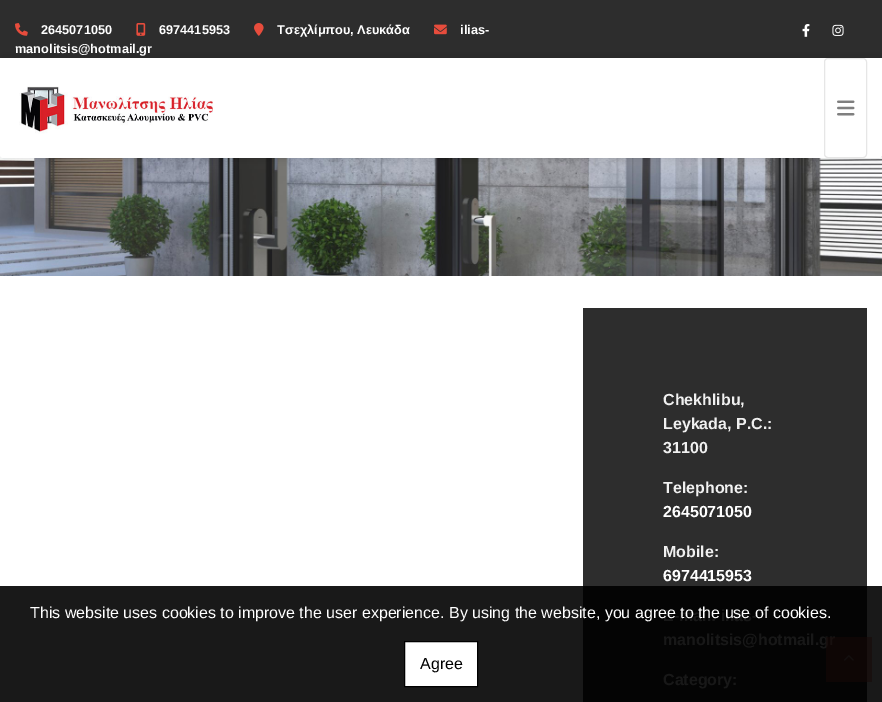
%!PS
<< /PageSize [882 702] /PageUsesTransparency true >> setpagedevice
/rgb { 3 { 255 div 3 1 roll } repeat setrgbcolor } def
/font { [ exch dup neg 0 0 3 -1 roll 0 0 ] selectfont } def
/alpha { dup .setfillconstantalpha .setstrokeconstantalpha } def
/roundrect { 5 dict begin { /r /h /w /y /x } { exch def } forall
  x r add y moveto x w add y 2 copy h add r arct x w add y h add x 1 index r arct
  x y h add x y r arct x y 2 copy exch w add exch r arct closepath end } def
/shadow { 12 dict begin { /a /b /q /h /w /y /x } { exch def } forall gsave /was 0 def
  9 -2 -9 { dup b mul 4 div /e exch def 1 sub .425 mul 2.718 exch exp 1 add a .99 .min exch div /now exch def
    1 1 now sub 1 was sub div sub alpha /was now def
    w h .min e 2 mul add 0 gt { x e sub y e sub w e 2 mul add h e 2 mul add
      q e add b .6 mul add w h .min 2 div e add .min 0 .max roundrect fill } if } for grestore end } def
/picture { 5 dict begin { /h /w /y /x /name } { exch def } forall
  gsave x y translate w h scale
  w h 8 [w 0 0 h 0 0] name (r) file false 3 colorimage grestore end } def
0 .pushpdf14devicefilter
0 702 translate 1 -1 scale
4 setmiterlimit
255 255 255 rgb
0 0 882 702 rectfill
25 25 25 rgb
0 586 882 116 rectfill
45 45 45 rgb
0 0 882 58 rectfill
(img/1.rgb) 434 24 13 11 picture
(img/2.rgb) 15 23 13 13 picture
(img/3.rgb) 136 23 10 13 picture
(img/4.rgb) 254 23 10 13 picture
(img/5.rgb) 802 24 8 13 picture
(img/6.rgb) 832 24 12 12 picture
(img/9.rgb) 0 155 882 121 picture
0 0 0 rgb
0 58 882 100 3 5 0.15 shadow
255 255 255 rgb
0 58 moveto 882 58 lineto 882 155 lineto 882 156.5 880.5 158 879 158 curveto 3 158 lineto 1.5 158 0 156.5 0 155 curveto closepath fill
(img/7.rgb) 19 86 194 48 picture
230 230 230 rgb
824.5 58.5 42 99 3.5 roundrect stroke
(img/8.rgb) 837 100 18 16 picture
45 45 45 rgb
583 308 284 278 rectfill
4 4 4 rgb
583 586 284 116 rectfill
255 255 255 rgb
404.5 641.5 moveto 477.5 641.5 lineto 477.5 686.5 lineto 404.5 686.5 lineto closepath gsave fill grestore
0 0 0 rgb
stroke
/Arimo-Bold 12.75 font
255 255 255 rgb
[
  [(ilias-) 460 34]
  [(manolitsis@hotmail.gr) 15 53]
  [(2645071050) 41 34]
  [(6974415953) 159 34]
  [(Τσεχλίμπου, Λευκάδα) 277 34]
] { aload pop moveto show } forall
/Arimo-Bold 16 font
240 240 240 rgb
[
  [(Chekhlibu,) 663 405]
  [(Leykada, P.C.:) 663 429]
  [(31100) 663 453]
  [(Telephone:) 663 493]
] { aload pop moveto show } forall
255 255 255 rgb
663 517 moveto (2645071050) show
240 240 240 rgb
663 557 moveto (Mobile:) show
255 255 255 rgb
663 581 moveto (6974415953) show
24 24 24 rgb
[
  [(E-mail:) 663 621]
  [(ilias-) 721 621]
  [(manolitsis@hotmail.gr) 663 645]
  [(Category:) 663 685]
] { aload pop moveto show } forall
/Arimo-Regular 16 font
255 255 255 rgb
30 618 moveto (This website uses cookies to improve the user experience. By using the website, you agree to the use of cookies.) show
0 0 0 rgb
420 669 moveto (Agree) show
0.5 alpha
23 8 6 rgb
826 637 46 45 rectfill
1 alpha
(img/10.rgb) 844 655 10 6 picture
.poppdf14devicefilter showpage
